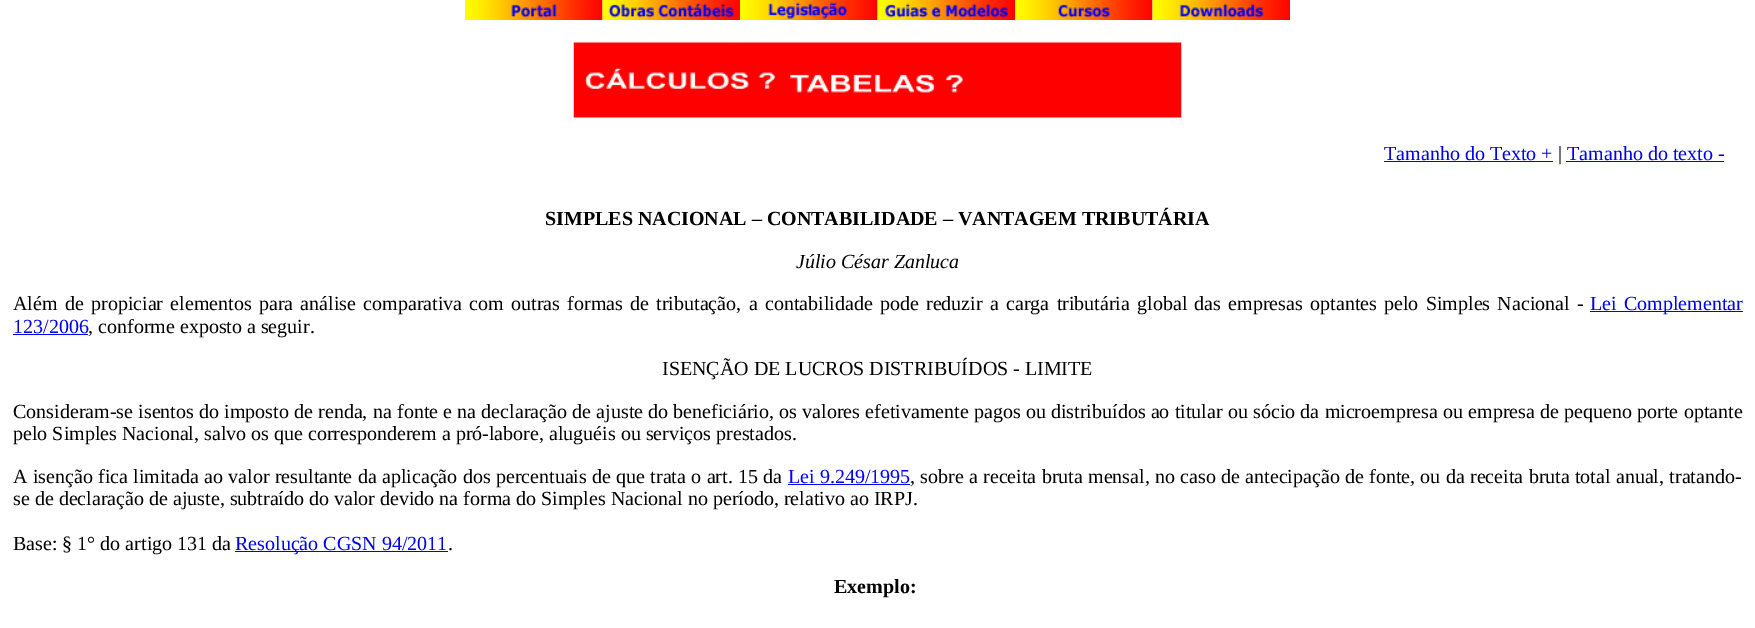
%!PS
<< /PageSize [1755 628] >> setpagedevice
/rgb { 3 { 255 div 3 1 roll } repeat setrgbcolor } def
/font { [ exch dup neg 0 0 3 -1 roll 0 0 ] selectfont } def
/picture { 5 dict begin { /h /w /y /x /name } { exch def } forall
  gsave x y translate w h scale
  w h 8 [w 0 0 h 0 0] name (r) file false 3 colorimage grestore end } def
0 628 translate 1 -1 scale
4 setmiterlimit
255 255 255 rgb
0 0 1755 628 rectfill
(img/1.rgb) 465 0 138 20 picture
(img/2.rgb) 602 0 138 20 picture
(img/3.rgb) 740 0 138 20 picture
(img/4.rgb) 877 0 138 20 picture
(img/5.rgb) 1015 0 138 20 picture
(img/6.rgb) 1152 0 138 20 picture
(img/7.rgb) 573 42 609 76 picture
[
  [1384 161 169 1 0 0 238]
  [1566 161 158 1 0 0 238]
  [1590 311 153 1 0 0 238]
  [13 334 75 1 0 0 238]
  [788 484 122 1 0 0 255]
  [235 551 213 1 0 0 238]
] { aload pop rgb rectfill } forall
/LiberationSerif-Regular 20 font
1384 160 moveto (Tamanho do Texto +) show
0 0 0 rgb
1558 160 moveto (|) show
0 0 238 rgb
1567 160 moveto (Tamanho do texto -) show
/LiberationSerif-Bold 20 font
0 0 0 rgb
545 225 moveto (SIMPLES NACIONAL – CONTABILIDADE – VANTAGEM TRIBUTÁRIA) show
/LiberationSerif-Italic 20 font
796 268 moveto (Júlio César Zanluca) show
/LiberationSerif-Regular 20 font
13 310 moveto 2.3 0 32 (Além de propiciar elementos para análise comparativa com outras formas de tributação, a contabilidade pode reduzir a carga tributária global das empresas optantes pelo Simples Nacional -) widthshow
0 0 238 rgb
1590 310 moveto 2.3 0 32 (Lei Complementar) widthshow
13 333 moveto (123/2006) show
0 0 0 rgb
88 333 moveto (, conforme exposto a seguir.) show
662 375 moveto (ISENÇÃO DE LUCROS DISTRIBUÍDOS - LIMITE) show
13 418 moveto 0.25 0 32 (Consideram-se isentos do imposto de renda, na fonte e na declaração de ajuste do beneficiário, os valores efetivamente pagos ou distribuídos ao titular ou sócio da microempresa ou empresa de pequeno porte optante) widthshow
13 440 moveto (pelo Simples Nacional, salvo os que corresponderem a pró-labore, aluguéis ou serviços prestados.) show
13 483 moveto 0.3 0 32 (A isenção fica limitada ao valor resultante da aplicação dos percentuais de que trata o art. 15 da) widthshow
0 0 255 rgb
788 483 moveto (Lei 9.249/1995) show
0 0 0 rgb
910 483 moveto 0.3 0 32 (, sobre a receita bruta mensal, no caso de antecipação de fonte, ou da receita bruta total anual, tratando-) widthshow
13 505 moveto (se de declaração de ajuste, subtraído do valor devido na forma do Simples Nacional no período, relativo ao IRPJ.) show
13 550 moveto (Base: § 1° do artigo 131 da) show
0 0 238 rgb
235 550 moveto (Resolução CGSN 94/2011) show
0 0 0 rgb
448 550 moveto (.) show
/LiberationSerif-Bold 20 font
834 593 moveto (Exemplo:) show
showpage
